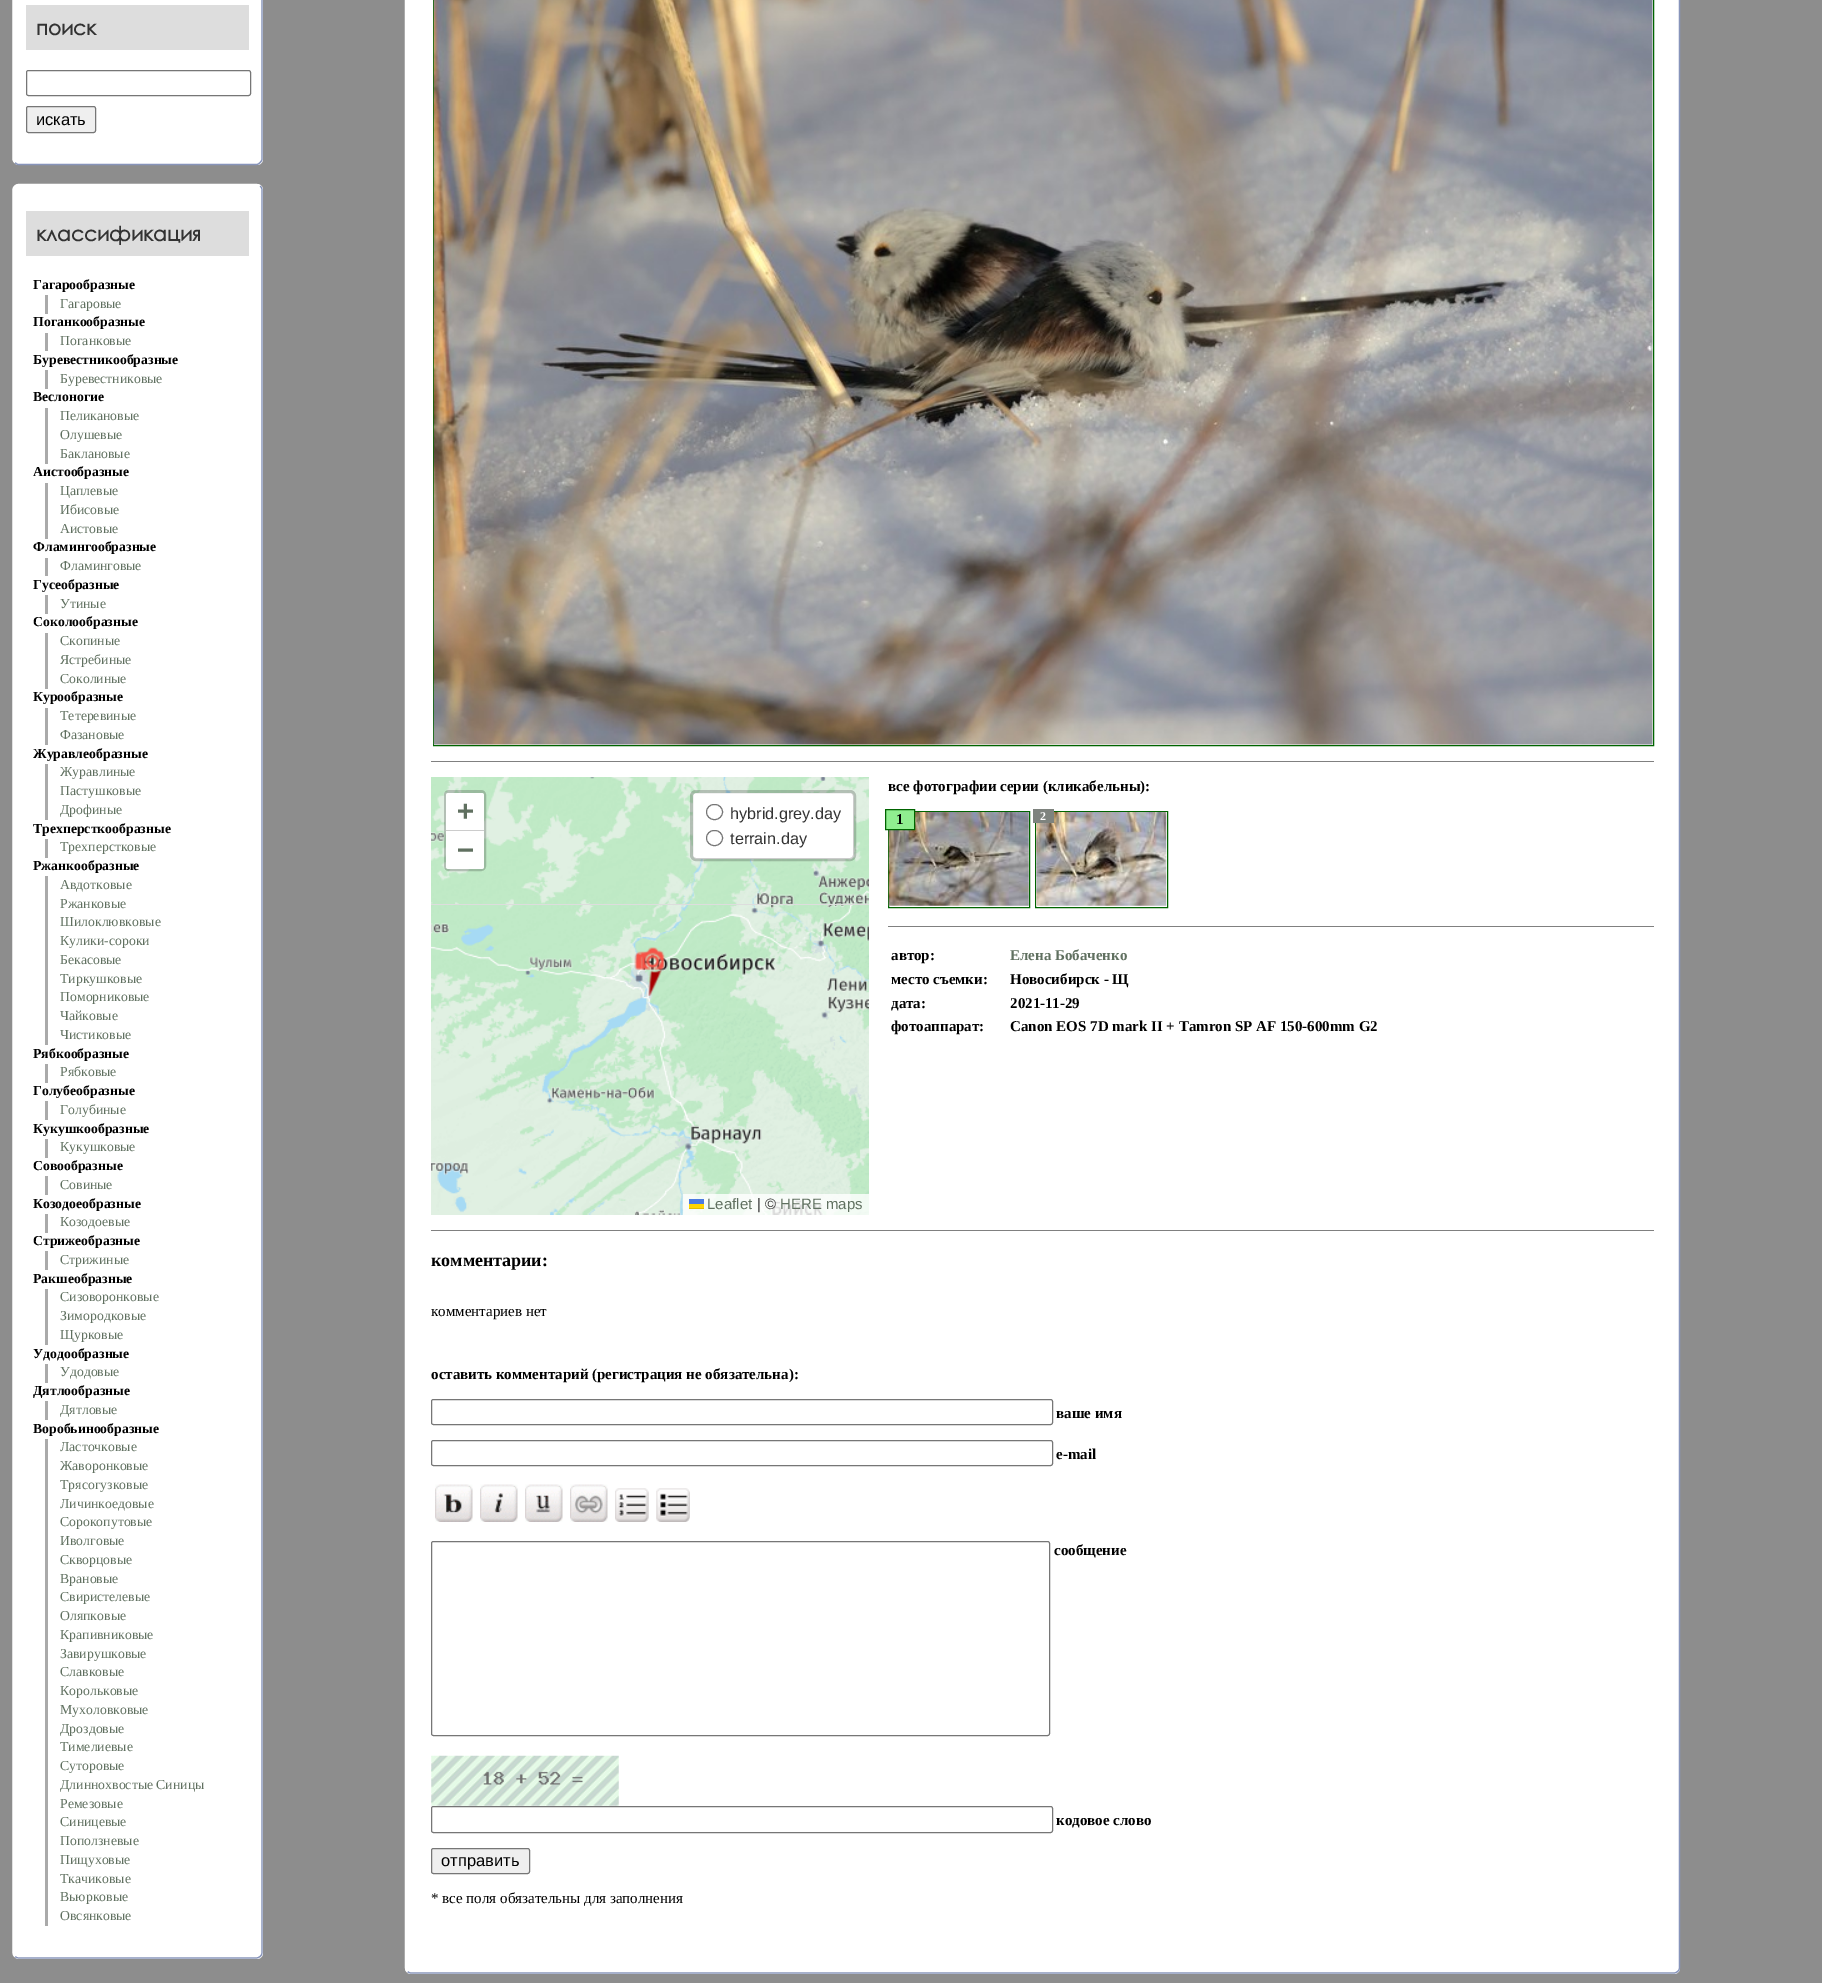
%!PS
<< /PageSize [1822 1983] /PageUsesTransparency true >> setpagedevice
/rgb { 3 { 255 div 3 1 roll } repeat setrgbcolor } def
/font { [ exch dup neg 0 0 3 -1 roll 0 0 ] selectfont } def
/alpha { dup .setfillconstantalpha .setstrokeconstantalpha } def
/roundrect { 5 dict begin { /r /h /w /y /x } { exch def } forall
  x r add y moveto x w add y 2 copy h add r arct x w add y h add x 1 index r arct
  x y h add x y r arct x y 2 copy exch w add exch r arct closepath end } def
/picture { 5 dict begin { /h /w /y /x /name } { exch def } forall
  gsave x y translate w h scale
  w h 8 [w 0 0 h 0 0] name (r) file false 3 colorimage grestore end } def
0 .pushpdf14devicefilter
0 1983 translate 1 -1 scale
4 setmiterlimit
141 141 141 rgb
0 0 1822 1983 rectfill
255 255 255 rgb
13 -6 250 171 6 roundrect fill
135 148 186 rgb
1.2 setlinewidth
260 -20 moveto 261.5 -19 262 -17.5 262 -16.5 curveto 262 159 lineto 262 160 261.5 161.5 260 162.5 curveto 259 164 257.5 164.5 256 164.5 curveto 19 164.5 lineto 17.5 164.5 16 164 15 162.5 curveto stroke
255 255 255 rgb
15 162.5 moveto 13.5 161.5 13 160 13 159 curveto 13 -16 lineto 13 -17.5 13.5 -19 15 -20 curveto 16 -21.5 17.5 -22 19 -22 curveto 256 -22 lineto 257.5 -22 259 -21.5 260 -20 curveto stroke
221 221 221 rgb
26 5 223 45 rectfill
118 118 118 rgb
1 setlinewidth
26.5 70.5 224 25 2 roundrect stroke
239 239 239 rgb
26.5 106.5 69 26 2 roundrect gsave fill grestore
118 118 118 rgb
stroke
255 255 255 rgb
13 184 250 1775 6 roundrect fill
135 148 186 rgb
1.2 setlinewidth
260 186 moveto 261.5 187 262 188.5 262 190 curveto 262 1952.5 lineto 262 1954 261.5 1955.5 260 1956.5 curveto 259 1957.5 257.5 1958 256 1958 curveto 19 1958 lineto 17.5 1958 16 1957.5 15 1956.5 curveto stroke
255 255 255 rgb
15 1956.5 moveto 13.5 1955.5 13 1954 13 1952.5 curveto 13 190 lineto 13 188.5 13.5 187 15 186 curveto 16 185 17.5 184.5 19 184.5 curveto 256 184.5 lineto 257.5 184.5 259 185 260 186 curveto stroke
[
  [26 211 223 45 221 221 221]
  [45 295 3 19 170 170 170]
  [45 333 3 18 170 170 170]
  [45 370 3 19 170 170 170]
  [45 408 3 56 170 170 170]
  [45 483 3 56 170 170 170]
  [45 558 3 18 170 170 170]
  [45 595 3 19 170 170 170]
  [45 633 3 56 170 170 170]
  [45 708 3 37 170 170 170]
  [45 764 3 56 170 170 170]
  [45 839 3 19 170 170 170]
  [45 876 3 169 170 170 170]
  [45 1064 3 19 170 170 170]
  [45 1101 3 19 170 170 170]
  [45 1139 3 19 170 170 170]
  [45 1176 3 19 170 170 170]
  [45 1214 3 19 170 170 170]
  [45 1251 3 19 170 170 170]
  [45 1289 3 56 170 170 170]
  [45 1364 3 19 170 170 170]
  [45 1401 3 19 170 170 170]
  [45 1439 3 487 170 170 170]
] { aload pop rgb rectfill } forall
255 255 255 rgb
405 -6 1275 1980 6 roundrect fill
135 148 186 rgb
1677.5 -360 moveto 1679 -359 1679.5 -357.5 1679.5 -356 curveto 1679.5 1967.5 lineto 1679.5 1969 1679 1970.5 1677.5 1971.5 curveto 1676.5 1972.5 1675 1973 1674 1973 curveto 411 1973 lineto 410 1973 408.5 1972.5 407.5 1971.5 curveto stroke
255 255 255 rgb
407.5 1971.5 moveto 406 1970.5 405.5 1969 405.5 1967.5 curveto 405.5 -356 lineto 405.5 -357.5 406 -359 407.5 -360 curveto 408.5 -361.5 410 -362 411 -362 curveto 1674 -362 lineto 1675 -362 1676.5 -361.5 1677.5 -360 curveto stroke
0 100 0 rgb
1 setlinewidth
433.5 -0.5 1220 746 rectstroke
(img/1.rgb) 433 0 1220 745 picture
128 128 128 rgb
431 761 1223 1 rectfill
221 221 221 rgb
431 904 438 1 rectfill
(img/2.rgb) 431 777 292 127 picture
(img/3.rgb) 723 777 146 127 picture
(img/4.rgb) 431 905 292 310 picture
(img/5.rgb) 723 905 146 310 picture
(img/6.rgb) 634 947 31 49 picture
0.2 alpha
0 0 0 rgb
3 setlinewidth
445.5 791.5 39 78 3.5 roundrect stroke
1 alpha
255 255 255 rgb
448.5 793 moveto 481.5 793 lineto 483 793 484 794 484 795.5 curveto 484 831 lineto 446 831 lineto 446 795.5 lineto 446 794 447 793 448.5 793 curveto closepath fill
204 204 204 rgb
446 830 38 1 rectfill
255 255 255 rgb
446 831 moveto 484 831 lineto 484 866.5 lineto 484 868 483 869 481.5 869 curveto 448.5 869 lineto 447 869 446 868 446 866.5 curveto closepath fill
693 793 161 66 4 roundrect fill
0.2 alpha
0 0 0 rgb
691.5 791.5 163 68 4.5 roundrect stroke
1 alpha
118 118 118 rgb
1 setlinewidth
706.5 804.5 16 15 7.5 roundrect stroke
706.5 830.5 16 15 7.5 roundrect stroke
0.8 alpha
[
  [683 1194 186 21 255 255 255]
] { aload pop rgb rectfill } forall
1 alpha
[
  [689 1199 15 5 76 123 225]
  [689 1204 15 4 255 213 0]
  [689 1208 15 1 224 188 0]
] { aload pop rgb rectfill } forall
0 100 0 rgb
888.5 811.5 141 96 rectstroke
(img/7.rgb) 888 812 141 94 picture
144 238 144 rgb
885.5 809.5 moveto 914.5 809.5 lineto 914.5 829.5 lineto 885.5 829.5 lineto closepath gsave fill grestore
0 100 0 rgb
stroke
1035.5 811.5 132 96 rectstroke
(img/8.rgb) 1036 812 131 94 picture
[
  [1033 809 21 14 126 131 126]
  [888 926 766 1 128 128 128]
  [431 1230 1223 1 128 128 128]
] { aload pop rgb rectfill } forall
118 118 118 rgb
431.5 1399.5 621 25 2 roundrect stroke
431.5 1440.5 621 25 2 roundrect stroke
(img/9.rgb) 435 1484 38 38 picture
(img/10.rgb) 480 1484 38 38 picture
(img/11.rgb) 525 1484 38 38 picture
(img/12.rgb) 570 1484 38 38 picture
(img/13.rgb) 615 1488 34 34 picture
(img/14.rgb) 656 1488 34 34 picture
431.5 1541.5 618 194 2 roundrect stroke
(img/15.rgb) 431 1755 188 51 picture
431.5 1806.5 621 26 2 roundrect stroke
239 239 239 rgb
431.5 1848.5 98 25 2 roundrect gsave fill grestore
118 118 118 rgb
stroke
/CenturyGothic-Bold 20 font
51 51 51 rgb
36 35 moveto (поиск) show
/LiberationSans-Regular 16.5 font
0 0 0 rgb
36 125 moveto (искать) show
/CenturyGothic-Bold 20 font
51 51 51 rgb
36 241 moveto (классификация) show
/LiberationSerif-Bold 13.75 font
0 0 0 rgb
33 289 moveto (Гагарообразные) show
/LiberationSerif-Regular 13.75 font
96 112 96 rgb
60 308 moveto (Гагаровые) show
/LiberationSerif-Bold 13.75 font
0 0 0 rgb
33 326 moveto (Поганкообразные) show
/LiberationSerif-Regular 13.75 font
96 112 96 rgb
60 345 moveto (Поганковые) show
/LiberationSerif-Bold 13.75 font
0 0 0 rgb
33 364 moveto (Буревестникообразные) show
/LiberationSerif-Regular 13.75 font
96 112 96 rgb
60 383 moveto (Буревестниковые) show
/LiberationSerif-Bold 13.75 font
0 0 0 rgb
33 401 moveto (Веслоногие) show
/LiberationSerif-Regular 13.75 font
96 112 96 rgb
[
  [(Пеликановые) 60 420]
  [(Олушевые) 60 439]
  [(Баклановые) 60 458]
] { aload pop moveto show } forall
/LiberationSerif-Bold 13.75 font
0 0 0 rgb
33 476 moveto (Аистообразные) show
/LiberationSerif-Regular 13.75 font
96 112 96 rgb
[
  [(Цаплевые) 60 495]
  [(Ибисовые) 60 514]
  [(Аистовые) 60 533]
] { aload pop moveto show } forall
/LiberationSerif-Bold 13.75 font
0 0 0 rgb
33 551 moveto (Фламингообразные) show
/LiberationSerif-Regular 13.75 font
96 112 96 rgb
60 570 moveto (Фламинговые) show
/LiberationSerif-Bold 13.75 font
0 0 0 rgb
33 589 moveto (Гусеобразные) show
/LiberationSerif-Regular 13.75 font
96 112 96 rgb
60 608 moveto (Утиные) show
/LiberationSerif-Bold 13.75 font
0 0 0 rgb
33 626 moveto (Соколообразные) show
/LiberationSerif-Regular 13.75 font
96 112 96 rgb
[
  [(Скопиные) 60 645]
  [(Ястребиные) 60 664]
  [(Соколиные) 60 683]
] { aload pop moveto show } forall
/LiberationSerif-Bold 13.75 font
0 0 0 rgb
33 701 moveto (Курообразные) show
/LiberationSerif-Regular 13.75 font
96 112 96 rgb
60 720 moveto (Тетеревиные) show
60 739 moveto (Фазановые) show
/LiberationSerif-Bold 13.75 font
0 0 0 rgb
33 758 moveto (Журавлеобразные) show
/LiberationSerif-Regular 13.75 font
96 112 96 rgb
[
  [(Журавлиные) 60 776]
  [(Пастушковые) 60 795]
  [(Дрофиные) 60 814]
] { aload pop moveto show } forall
/LiberationSerif-Bold 13.75 font
0 0 0 rgb
33 833 moveto (Трехперсткообразные) show
/LiberationSerif-Regular 13.75 font
96 112 96 rgb
60 851 moveto (Трехперстковые) show
/LiberationSerif-Bold 13.75 font
0 0 0 rgb
33 870 moveto (Ржанкообразные) show
/LiberationSerif-Regular 13.75 font
96 112 96 rgb
[
  [(Авдотковые) 60 889]
  [(Ржанковые) 60 908]
  [(Шилоклювковые) 60 926]
  [(Кулики-сороки) 60 945]
  [(Бекасовые) 60 964]
  [(Тиркушковые) 60 983]
  [(Поморниковые) 60 1001]
  [(Чайковые) 60 1020]
  [(Чистиковые) 60 1039]
] { aload pop moveto show } forall
/LiberationSerif-Bold 13.75 font
0 0 0 rgb
33 1058 moveto (Рябкообразные) show
/LiberationSerif-Regular 13.75 font
96 112 96 rgb
60 1076 moveto (Рябковые) show
/LiberationSerif-Bold 13.75 font
0 0 0 rgb
33 1095 moveto (Голубеобразные) show
/LiberationSerif-Regular 13.75 font
96 112 96 rgb
60 1114 moveto (Голубиные) show
/LiberationSerif-Bold 13.75 font
0 0 0 rgb
33 1133 moveto (Кукушкообразные) show
/LiberationSerif-Regular 13.75 font
96 112 96 rgb
60 1151 moveto (Кукушковые) show
/LiberationSerif-Bold 13.75 font
0 0 0 rgb
33 1170 moveto (Совообразные) show
/LiberationSerif-Regular 13.75 font
96 112 96 rgb
60 1189 moveto (Совиные) show
/LiberationSerif-Bold 13.75 font
0 0 0 rgb
33 1208 moveto (Козодоеобразные) show
/LiberationSerif-Regular 13.75 font
96 112 96 rgb
60 1226 moveto (Козодоевые) show
/LiberationSerif-Bold 13.75 font
0 0 0 rgb
33 1245 moveto (Стрижеобразные) show
/LiberationSerif-Regular 13.75 font
96 112 96 rgb
60 1264 moveto (Стрижиные) show
/LiberationSerif-Bold 13.75 font
0 0 0 rgb
33 1283 moveto (Ракшеобразные) show
/LiberationSerif-Regular 13.75 font
96 112 96 rgb
[
  [(Сизоворонковые) 60 1301]
  [(Зимородковые) 60 1320]
  [(Щурковые) 60 1339]
] { aload pop moveto show } forall
/LiberationSerif-Bold 13.75 font
0 0 0 rgb
33 1358 moveto (Удодообразные) show
/LiberationSerif-Regular 13.75 font
96 112 96 rgb
60 1376 moveto (Удодовые) show
/LiberationSerif-Bold 13.75 font
0 0 0 rgb
33 1395 moveto (Дятлообразные) show
/LiberationSerif-Regular 13.75 font
96 112 96 rgb
60 1414 moveto (Дятловые) show
/LiberationSerif-Bold 13.75 font
0 0 0 rgb
33 1433 moveto (Воробьинообразные) show
/LiberationSerif-Regular 13.75 font
96 112 96 rgb
[
  [(Ласточковые) 60 1451]
  [(Жаворонковые) 60 1470]
  [(Трясогузковые) 60 1489]
  [(Личинкоедовые) 60 1508]
  [(Сорокопутовые) 60 1526]
  [(Иволговые) 60 1545]
  [(Скворцовые) 60 1564]
  [(Врановые) 60 1583]
  [(Свиристелевые) 60 1601]
  [(Оляпковые) 60 1620]
  [(Крапивниковые) 60 1639]
  [(Завирушковые) 60 1658]
  [(Славковые) 60 1676]
  [(Корольковые) 60 1695]
  [(Мухоловковые) 60 1714]
  [(Дроздовые) 60 1733]
  [(Тимелиевые) 60 1751]
  [(Суторовые) 60 1770]
  [(Длиннохвостые Синицы) 60 1789]
  [(Ремезовые) 60 1808]
  [(Синицевые) 60 1826]
  [(Поползневые) 60 1845]
  [(Пищуховые) 60 1864]
  [(Ткачиковые) 60 1883]
  [(Вьюрковые) 60 1901]
  [(Овсянковые) 60 1920]
] { aload pop moveto show } forall
/DejaVuSansMono-Bold 28 font
457 820 moveto (+) show
457 859 moveto (−) show
/LiberationSans-Regular 16.25 font
51 51 51 rgb
730 819 moveto (hybrid.grey.day) show
730 844 moveto (terrain.day) show
/LiberationSans-Regular 15 font
96 112 96 rgb
707 1209 moveto (Leaflet) show
51 51 51 rgb
757 1209 moveto (| ©) show
96 112 96 rgb
780 1209 moveto (HERE maps) show
/LiberationSerif-Bold 15 font
0 0 0 rgb
888 791 moveto (все фотографии серии \(кликабельны\):) show
896 824 moveto (1) show
/LiberationSerif-Bold 12 font
255 255 255 rgb
1040 820 moveto (2) show
/LiberationSerif-Bold 15 font
0 0 0 rgb
891 960 moveto (автор:) show
96 112 96 rgb
1010 960 moveto (Елена Бобаченко) show
0 0 0 rgb
[
  [(место съемки:) 891 984]
  [(Новосибирск - Щ) 1010 984]
  [(дата:) 891 1008]
  [(2021-11-29) 1010 1008]
  [(фотоаппарат:) 891 1031]
  [(Canon EOS 7D mark II + Tamron SP AF 150-600mm G2) 1010 1031]
] { aload pop moveto show } forall
/LiberationSerif-Bold 18 font
431 1266 moveto (комментарии:) show
/LiberationSerif-Regular 15 font
431 1316 moveto (комментариев нет) show
/LiberationSerif-Bold 15 font
[
  [(оставить комментарий \(регистрация не обязательна\):) 431 1379]
  [(ваше имя) 1056 1418]
  [(e-mail) 1056 1459]
  [(сообщение) 1054 1555]
  [(кодовое слово) 1056 1825]
] { aload pop moveto show } forall
/LiberationSans-Regular 16.5 font
441 1866 moveto (отправить) show
/LiberationSerif-Regular 15 font
431 1903 moveto (* все поля обязательны для заполнения) show
.poppdf14devicefilter showpage
